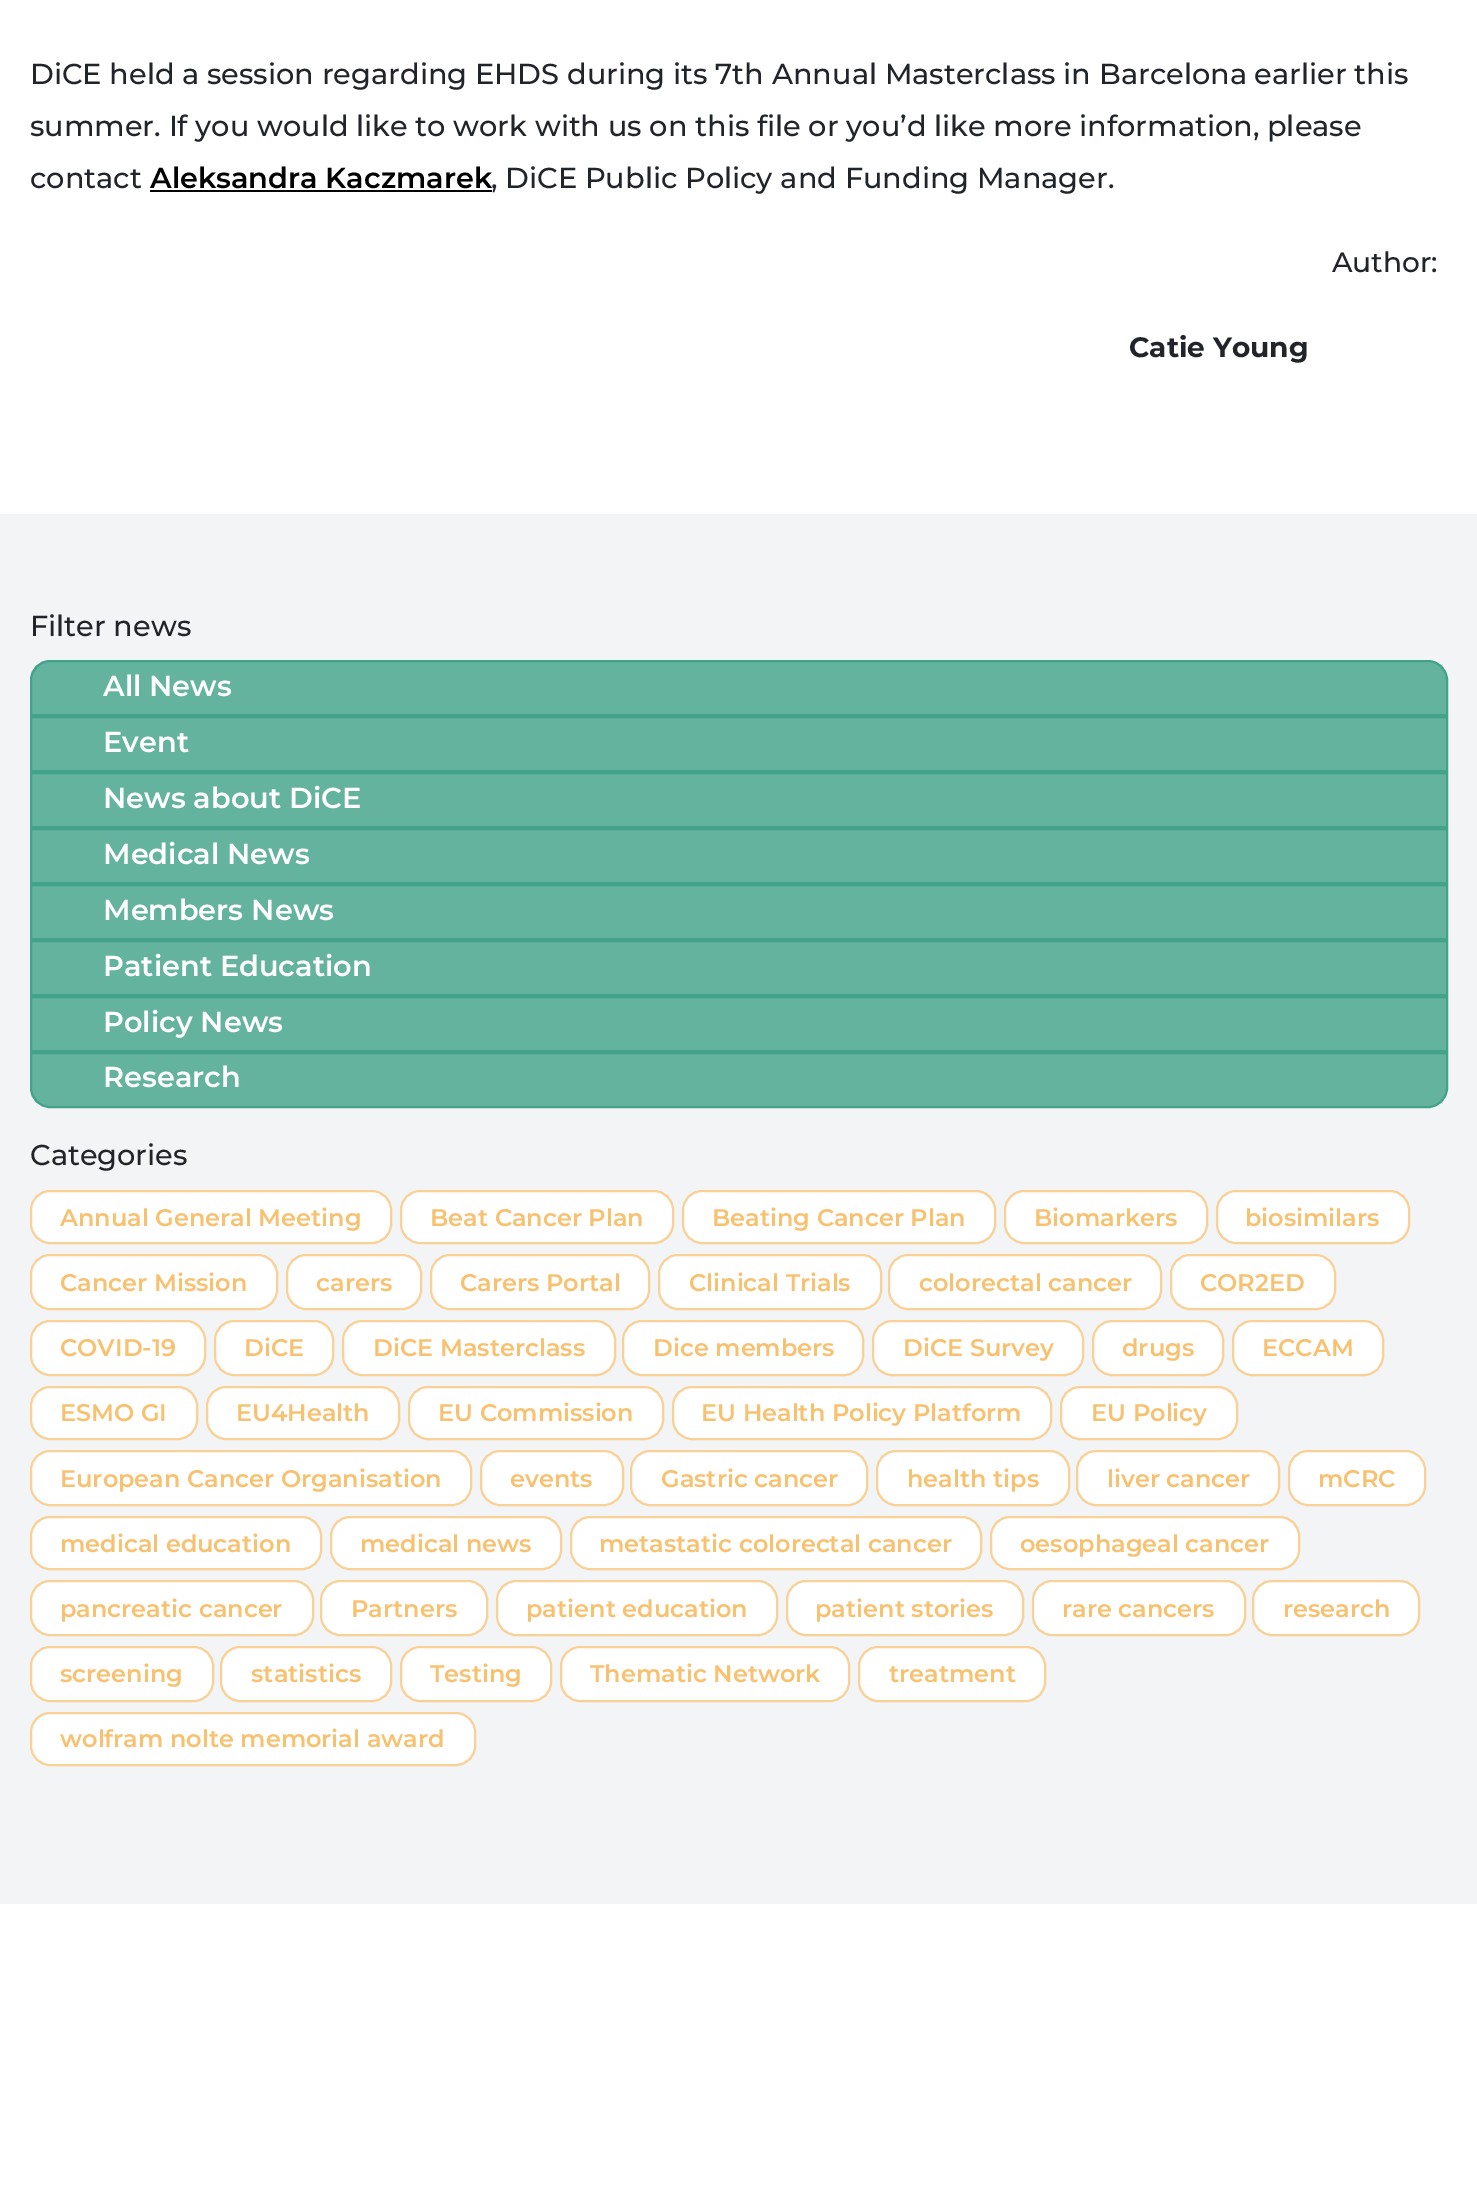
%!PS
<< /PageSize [1477 2186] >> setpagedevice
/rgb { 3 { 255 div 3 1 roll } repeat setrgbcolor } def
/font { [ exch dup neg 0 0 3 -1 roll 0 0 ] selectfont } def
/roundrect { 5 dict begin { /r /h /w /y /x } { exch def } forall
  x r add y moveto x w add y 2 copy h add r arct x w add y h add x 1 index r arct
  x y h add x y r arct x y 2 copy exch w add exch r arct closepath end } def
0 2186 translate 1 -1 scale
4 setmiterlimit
255 255 255 rgb
0 0 1477 2186 rectfill
0 0 0 rgb
150 190 342 2 rectfill
242 244 246 rgb
0 514 1477 1390 rectfill
99 179 158 rgb
50 661 moveto 1428 661 lineto 1438.5 661 1447 669.5 1447 680 curveto 1447 715 lineto 31 715 lineto 31 680 lineto 31 669.5 39.5 661 50 661 curveto closepath gsave fill grestore
66 162 138 rgb
2 setlinewidth
stroke
99 179 158 rgb
31 717 moveto 1447 717 lineto 1447 771 lineto 31 771 lineto closepath gsave fill grestore
66 162 138 rgb
stroke
99 179 158 rgb
31 773 moveto 1447 773 lineto 1447 827 lineto 31 827 lineto closepath gsave fill grestore
66 162 138 rgb
stroke
99 179 158 rgb
31 829 moveto 1447 829 lineto 1447 883 lineto 31 883 lineto closepath gsave fill grestore
66 162 138 rgb
stroke
99 179 158 rgb
31 885 moveto 1447 885 lineto 1447 939 lineto 31 939 lineto closepath gsave fill grestore
66 162 138 rgb
stroke
99 179 158 rgb
31 941 moveto 1447 941 lineto 1447 995 lineto 31 995 lineto closepath gsave fill grestore
66 162 138 rgb
stroke
99 179 158 rgb
31 997 moveto 1447 997 lineto 1447 1051 lineto 31 1051 lineto closepath gsave fill grestore
66 162 138 rgb
stroke
99 179 158 rgb
31 1053 moveto 1447 1053 lineto 1447 1088 lineto 1447 1098.5 1438.5 1107 1428 1107 curveto 50 1107 lineto 39.5 1107 31 1098.5 31 1088 curveto closepath gsave fill grestore
66 162 138 rgb
stroke
255 255 255 rgb
31 1191 360 52 19 roundrect gsave fill grestore
249 209 150 rgb
stroke
255 255 255 rgb
401 1191 272 52 19 roundrect gsave fill grestore
249 209 150 rgb
stroke
255 255 255 rgb
683 1191 312 52 19 roundrect gsave fill grestore
249 209 150 rgb
stroke
255 255 255 rgb
1005 1191 202 52 19 roundrect gsave fill grestore
249 209 150 rgb
stroke
255 255 255 rgb
1217 1191 192 52 19 roundrect gsave fill grestore
249 209 150 rgb
stroke
255 255 255 rgb
31 1255 246 54 19 roundrect gsave fill grestore
249 209 150 rgb
stroke
255 255 255 rgb
287 1255 134 54 19 roundrect gsave fill grestore
249 209 150 rgb
stroke
255 255 255 rgb
431 1255 218 54 19 roundrect gsave fill grestore
249 209 150 rgb
stroke
255 255 255 rgb
659 1255 222 54 19 roundrect gsave fill grestore
249 209 150 rgb
stroke
255 255 255 rgb
889 1255 272 54 19 roundrect gsave fill grestore
249 209 150 rgb
stroke
255 255 255 rgb
1171 1255 164 54 19 roundrect gsave fill grestore
249 209 150 rgb
stroke
255 255 255 rgb
31 1321 174 54 19 roundrect gsave fill grestore
249 209 150 rgb
stroke
255 255 255 rgb
215 1321 118 54 19 roundrect gsave fill grestore
249 209 150 rgb
stroke
255 255 255 rgb
343 1321 272 54 19 roundrect gsave fill grestore
249 209 150 rgb
stroke
255 255 255 rgb
623 1321 240 54 19 roundrect gsave fill grestore
249 209 150 rgb
stroke
255 255 255 rgb
873 1321 210 54 19 roundrect gsave fill grestore
249 209 150 rgb
stroke
255 255 255 rgb
1093 1321 130 54 19 roundrect gsave fill grestore
249 209 150 rgb
stroke
255 255 255 rgb
1233 1321 150 54 19 roundrect gsave fill grestore
249 209 150 rgb
stroke
255 255 255 rgb
31 1387 166 52 19 roundrect gsave fill grestore
249 209 150 rgb
stroke
255 255 255 rgb
207 1387 192 52 19 roundrect gsave fill grestore
249 209 150 rgb
stroke
255 255 255 rgb
409 1387 254 52 19 roundrect gsave fill grestore
249 209 150 rgb
stroke
255 255 255 rgb
673 1387 378 52 19 roundrect gsave fill grestore
249 209 150 rgb
stroke
255 255 255 rgb
1061 1387 176 52 19 roundrect gsave fill grestore
249 209 150 rgb
stroke
255 255 255 rgb
31 1451 440 54 19 roundrect gsave fill grestore
249 209 150 rgb
stroke
255 255 255 rgb
481 1451 142 54 19 roundrect gsave fill grestore
249 209 150 rgb
stroke
255 255 255 rgb
631 1451 236 54 19 roundrect gsave fill grestore
249 209 150 rgb
stroke
255 255 255 rgb
877 1451 192 54 19 roundrect gsave fill grestore
249 209 150 rgb
stroke
255 255 255 rgb
1077 1451 202 54 19 roundrect gsave fill grestore
249 209 150 rgb
stroke
255 255 255 rgb
1289 1451 136 54 19 roundrect gsave fill grestore
249 209 150 rgb
stroke
255 255 255 rgb
31 1517 290 52 19 roundrect gsave fill grestore
249 209 150 rgb
stroke
255 255 255 rgb
331 1517 230 52 19 roundrect gsave fill grestore
249 209 150 rgb
stroke
255 255 255 rgb
571 1517 410 52 19 roundrect gsave fill grestore
249 209 150 rgb
stroke
255 255 255 rgb
991 1517 308 52 19 roundrect gsave fill grestore
249 209 150 rgb
stroke
255 255 255 rgb
31 1581 282 54 19 roundrect gsave fill grestore
249 209 150 rgb
stroke
255 255 255 rgb
321 1581 166 54 19 roundrect gsave fill grestore
249 209 150 rgb
stroke
255 255 255 rgb
497 1581 280 54 19 roundrect gsave fill grestore
249 209 150 rgb
stroke
255 255 255 rgb
787 1581 236 54 19 roundrect gsave fill grestore
249 209 150 rgb
stroke
255 255 255 rgb
1033 1581 212 54 19 roundrect gsave fill grestore
249 209 150 rgb
stroke
255 255 255 rgb
1253 1581 166 54 19 roundrect gsave fill grestore
249 209 150 rgb
stroke
255 255 255 rgb
31 1647 182 54 19 roundrect gsave fill grestore
249 209 150 rgb
stroke
255 255 255 rgb
221 1647 170 54 19 roundrect gsave fill grestore
249 209 150 rgb
stroke
255 255 255 rgb
401 1647 150 54 19 roundrect gsave fill grestore
249 209 150 rgb
stroke
255 255 255 rgb
561 1647 288 54 19 roundrect gsave fill grestore
249 209 150 rgb
stroke
255 255 255 rgb
859 1647 186 54 19 roundrect gsave fill grestore
249 209 150 rgb
stroke
255 255 255 rgb
31 1713 444 52 19 roundrect gsave fill grestore
249 209 150 rgb
stroke
/Montserrat-Medium 28.8 font
33 37 41 rgb
[
  [(DiCE held a session regarding EHDS during its 7th Annual Masterclass in Barcelona earlier this) 30 84]
  [(summer. If you would like to work with us on this file or you’d like more information, please) 30 136]
  [(contact) 30 188]
] { aload pop moveto show } forall
/Montserrat-SemiBold 28.8 font
0 0 0 rgb
150 188 moveto (Aleksandra Kaczmarek) show
/Montserrat-Medium 28.8 font
33 37 41 rgb
491 188 moveto (, DiCE Public Policy and Funding Manager.) show
/Montserrat-Medium 28 font
1332 272 moveto (Author:) show
/Montserrat-Bold 28 font
1129 357 moveto (Catie Young) show
/Montserrat-Medium 28.8 font
30 636 moveto (Filter news) show
/Montserrat-SemiBold 28.8 font
255 255 255 rgb
[
  [(All News) 103 696]
  [(Event) 103 752]
  [(News about DiCE) 103 808]
  [(Medical News) 103 864]
  [(Members News) 103 920]
  [(Patient Education) 103 976]
  [(Policy News) 103 1032]
  [(Research) 103 1087]
] { aload pop moveto show } forall
/Montserrat-Medium 28.8 font
33 37 41 rgb
30 1165 moveto (Categories) show
/Montserrat-SemiBold 24 font
248 193 112 rgb
[
  [(Annual General Meeting) 60 1226]
  [(Beat Cancer Plan) 430 1226]
  [(Beating Cancer Plan) 712 1226]
  [(Biomarkers) 1034 1226]
  [(biosimilars) 1245 1226]
  [(Cancer Mission) 60 1291]
  [(carers) 316 1291]
  [(Carers Portal) 460 1291]
  [(Clinical Trials) 689 1291]
  [(colorectal cancer) 919 1291]
  [(COR2ED) 1200 1291]
  [(COVID-19) 60 1356]
  [(DiCE) 244 1356]
  [(DiCE Masterclass) 373 1356]
  [(Dice members) 653 1356]
  [(DiCE Survey) 903 1356]
  [(drugs) 1122 1356]
  [(ECCAM) 1262 1356]
  [(ESMO GI) 60 1421]
  [(EU4Health) 236 1421]
  [(EU Commission) 438 1421]
  [(EU Health Policy Platform) 701 1421]
  [(EU Policy) 1091 1421]
  [(European Cancer Organisation) 60 1487]
  [(events) 510 1487]
  [(Gastric cancer) 661 1487]
  [(health tips) 907 1487]
  [(liver cancer) 1107 1487]
  [(mCRC) 1318 1487]
  [(medical education) 60 1552]
  [(medical news) 360 1552]
  [(metastatic colorectal cancer) 599 1552]
  [(oesophageal cancer) 1020 1552]
  [(pancreatic cancer) 60 1617]
  [(Partners) 351 1617]
  [(patient education) 526 1617]
  [(patient stories) 815 1617]
  [(rare cancers) 1062 1617]
  [(research) 1283 1617]
  [(screening) 60 1682]
  [(statistics) 251 1682]
  [(Testing) 430 1682]
  [(Thematic Network) 590 1682]
  [(treatment) 889 1682]
  [(wolfram nolte memorial award) 60 1747]
] { aload pop moveto show } forall
showpage
